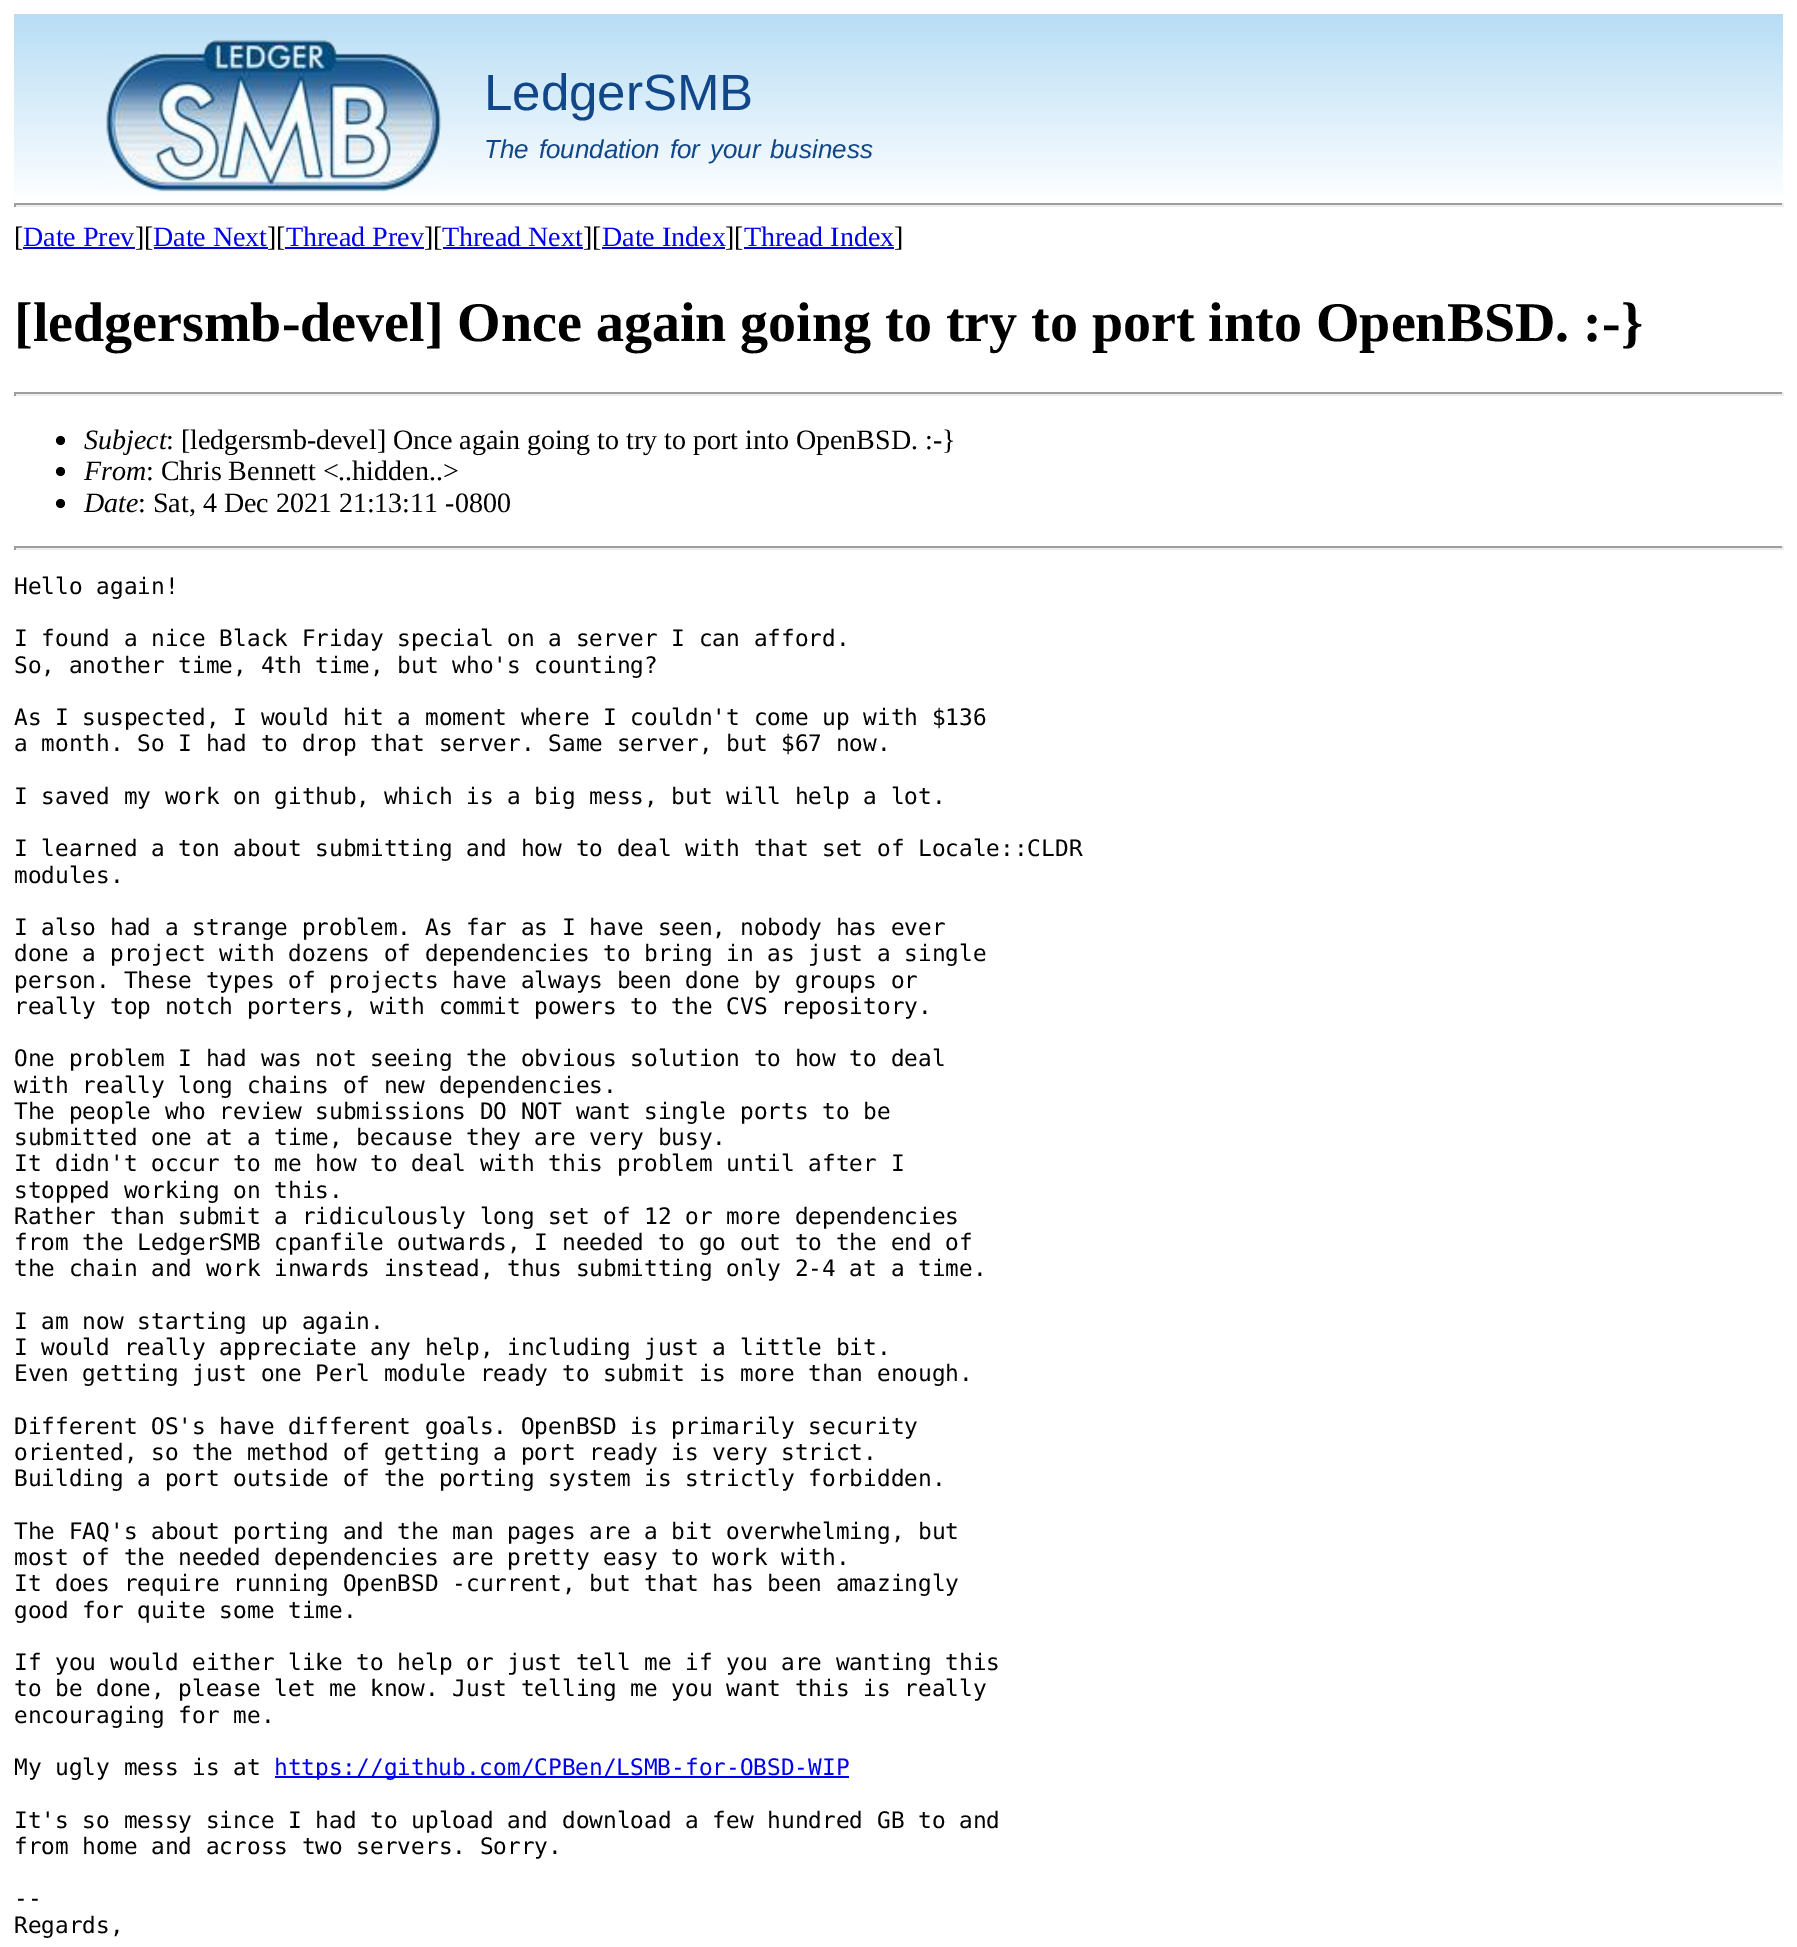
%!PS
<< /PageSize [1797 1947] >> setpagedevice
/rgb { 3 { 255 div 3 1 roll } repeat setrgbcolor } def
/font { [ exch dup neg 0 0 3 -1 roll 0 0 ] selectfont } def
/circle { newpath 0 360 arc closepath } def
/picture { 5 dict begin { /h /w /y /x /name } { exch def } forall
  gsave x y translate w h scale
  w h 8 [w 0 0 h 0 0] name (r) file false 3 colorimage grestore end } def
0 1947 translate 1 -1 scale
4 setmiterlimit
255 255 255 rgb
0 0 1797 1947 rectfill
gsave 14 14 moveto 1783 14 lineto 1783 196 lineto 14 196 lineto closepath clip newpath
<< /ShadingType 2 /ColorSpace /DeviceRGB /Coords [899 14 899 203] /Extend [true true] /Function << /FunctionType 2 /Domain [0 1] /C0 [0.718 0.867 0.961] /C1 [1 1 1] /N 1 >> >> shfill grestore
(img/1.rgb) 106 39 336 153 picture
[
  [14 203 1769 2 159 159 159]
  [1782 203 2 4 238 238 238]
  [14 205 1769 2 238 238 238]
  [14 203 2 4 159 159 159]
  [23 247 112 2 0 0 238]
  [154 247 114 2 0 0 238]
  [443 247 140 2 0 0 238]
  [602 247 123 2 0 0 238]
  [744 247 150 2 0 0 238]
  [14 392 1769 2 159 159 159]
  [1782 392 2 4 238 238 238]
  [14 394 1769 2 238 238 238]
  [14 392 2 4 159 159 159]
] { aload pop rgb rectfill } forall
0 0 0 rgb
60.5 440.5 4.5 circle fill
60.5 471.5 4.5 circle fill
60.5 503.5 4.5 circle fill
[
  [14 546 1769 2 159 159 159]
  [1782 546 2 4 238 238 238]
  [14 548 1769 2 238 238 238]
  [14 546 2 4 159 159 159]
  [275 1776 574 2 0 0 238]
] { aload pop rgb rectfill } forall
/LiberationSans-Regular 51 font
17 71 136 rgb
484 110 moveto (LedgerSMB) show
/LiberationSans-Italic 26 font
484 158 moveto 2.5 0 32 (The foundation for your business) widthshow
/LiberationSerif-Regular 28 font
0 0 0 rgb
14 246 moveto ([) show
0 0 238 rgb
23 246 moveto (Date Prev) show
0 0 0 rgb
135 246 moveto (][) show
0 0 238 rgb
153 246 moveto (Date Next) show
0 0 0 rgb
267 246 moveto (][) show
0 0 238 rgb
286 246 moveto (Thread Prev) show
285 247 139 2 rectfill
0 0 0 rgb
424 246 moveto (][) show
0 0 238 rgb
442 246 moveto (Thread Next) show
0 0 0 rgb
583 246 moveto (][) show
0 0 238 rgb
602 246 moveto (Date Index) show
0 0 0 rgb
725 246 moveto (][) show
0 0 238 rgb
744 246 moveto (Thread Index) show
0 0 0 rgb
894 246 moveto (]) show
/LiberationSerif-Bold 56 font
14 341 moveto ([ledgersmb-devel] Once again going to try to port into OpenBSD. :-}) show
/LiberationSerif-Italic 28 font
84 449 moveto (Subject) show
/LiberationSerif-Regular 28 font
166 449 moveto (: [ledgersmb-devel] Once again going to try to port into OpenBSD. :-}) show
/LiberationSerif-Italic 28 font
84 480 moveto (From) show
/LiberationSerif-Regular 28 font
146 480 moveto (: Chris Bennett <..hidden..>) show
/LiberationSerif-Italic 28 font
84 512 moveto (Date) show
/LiberationSerif-Regular 28 font
138 512 moveto (: Sat, 4 Dec 2021 21:13:11 -0800) show
/DejaVuSansMono-Regular 22.75 font
[
  [(Hello again!) 14 594]
  [(I found a nice Black Friday special on a server I can afford.) 14 646]
  [(So, another time, 4th time, but who's counting?) 14 673]
  [(As I suspected, I would hit a moment where I couldn't come up with $136) 14 725]
  [(a month. So I had to drop that server. Same server, but $67 now.) 14 751]
  [(I saved my work on github, which is a big mess, but will help a lot.) 14 804]
  [(I learned a ton about submitting and how to deal with that set of Locale::CLDR) 14 856]
  [(modules.) 14 883]
  [(I also had a strange problem. As far as I have seen, nobody has ever) 14 935]
  [(done a project with dozens of dependencies to bring in as just a single) 14 961]
  [(person. These types of projects have always been done by groups or) 14 988]
  [(really top notch porters, with commit powers to the CVS repository.) 14 1014]
  [(One problem I had was not seeing the obvious solution to how to deal) 14 1066]
  [(with really long chains of new dependencies.) 14 1093]
  [(The people who review submissions DO NOT want single ports to be) 14 1119]
  [(submitted one at a time, because they are very busy.) 14 1145]
  [(It didn't occur to me how to deal with this problem until after I) 14 1171]
  [(stopped working on this.) 14 1198]
  [(Rather than submit a ridiculously long set of 12 or more dependencies) 14 1224]
  [(from the LedgerSMB cpanfile outwards, I needed to go out to the end of) 14 1250]
  [(the chain and work inwards instead, thus submitting only 2-4 at a time.) 14 1276]
  [(I am now starting up again.) 14 1329]
  [(I would really appreciate any help, including just a little bit.) 14 1355]
  [(Even getting just one Perl module ready to submit is more than enough.) 14 1381]
  [(Different OS's have different goals. OpenBSD is primarily security) 14 1434]
  [(oriented, so the method of getting a port ready is very strict.) 14 1460]
  [(Building a port outside of the porting system is strictly forbidden.) 14 1486]
  [(The FAQ's about porting and the man pages are a bit overwhelming, but) 14 1539]
  [(most of the needed dependencies are pretty easy to work with.) 14 1565]
  [(It does require running OpenBSD -current, but that has been amazingly) 14 1591]
  [(good for quite some time.) 14 1618]
  [(If you would either like to help or just tell me if you are wanting this) 14 1670]
  [(to be done, please let me know. Just telling me you want this is really) 14 1696]
  [(encouraging for me.) 14 1723]
  [(My ugly mess is at) 14 1775]
] { aload pop moveto show } forall
0 0 238 rgb
274 1775 moveto (https://github.com/CPBen/LSMB-for-OBSD-WIP) show
0 0 0 rgb
[
  [(It's so messy since I had to upload and download a few hundred GB to and) 14 1828]
  [(from home and across two servers. Sorry.) 14 1854]
  [(--) 14 1906]
  [(Regards,) 14 1933]
] { aload pop moveto show } forall
showpage
